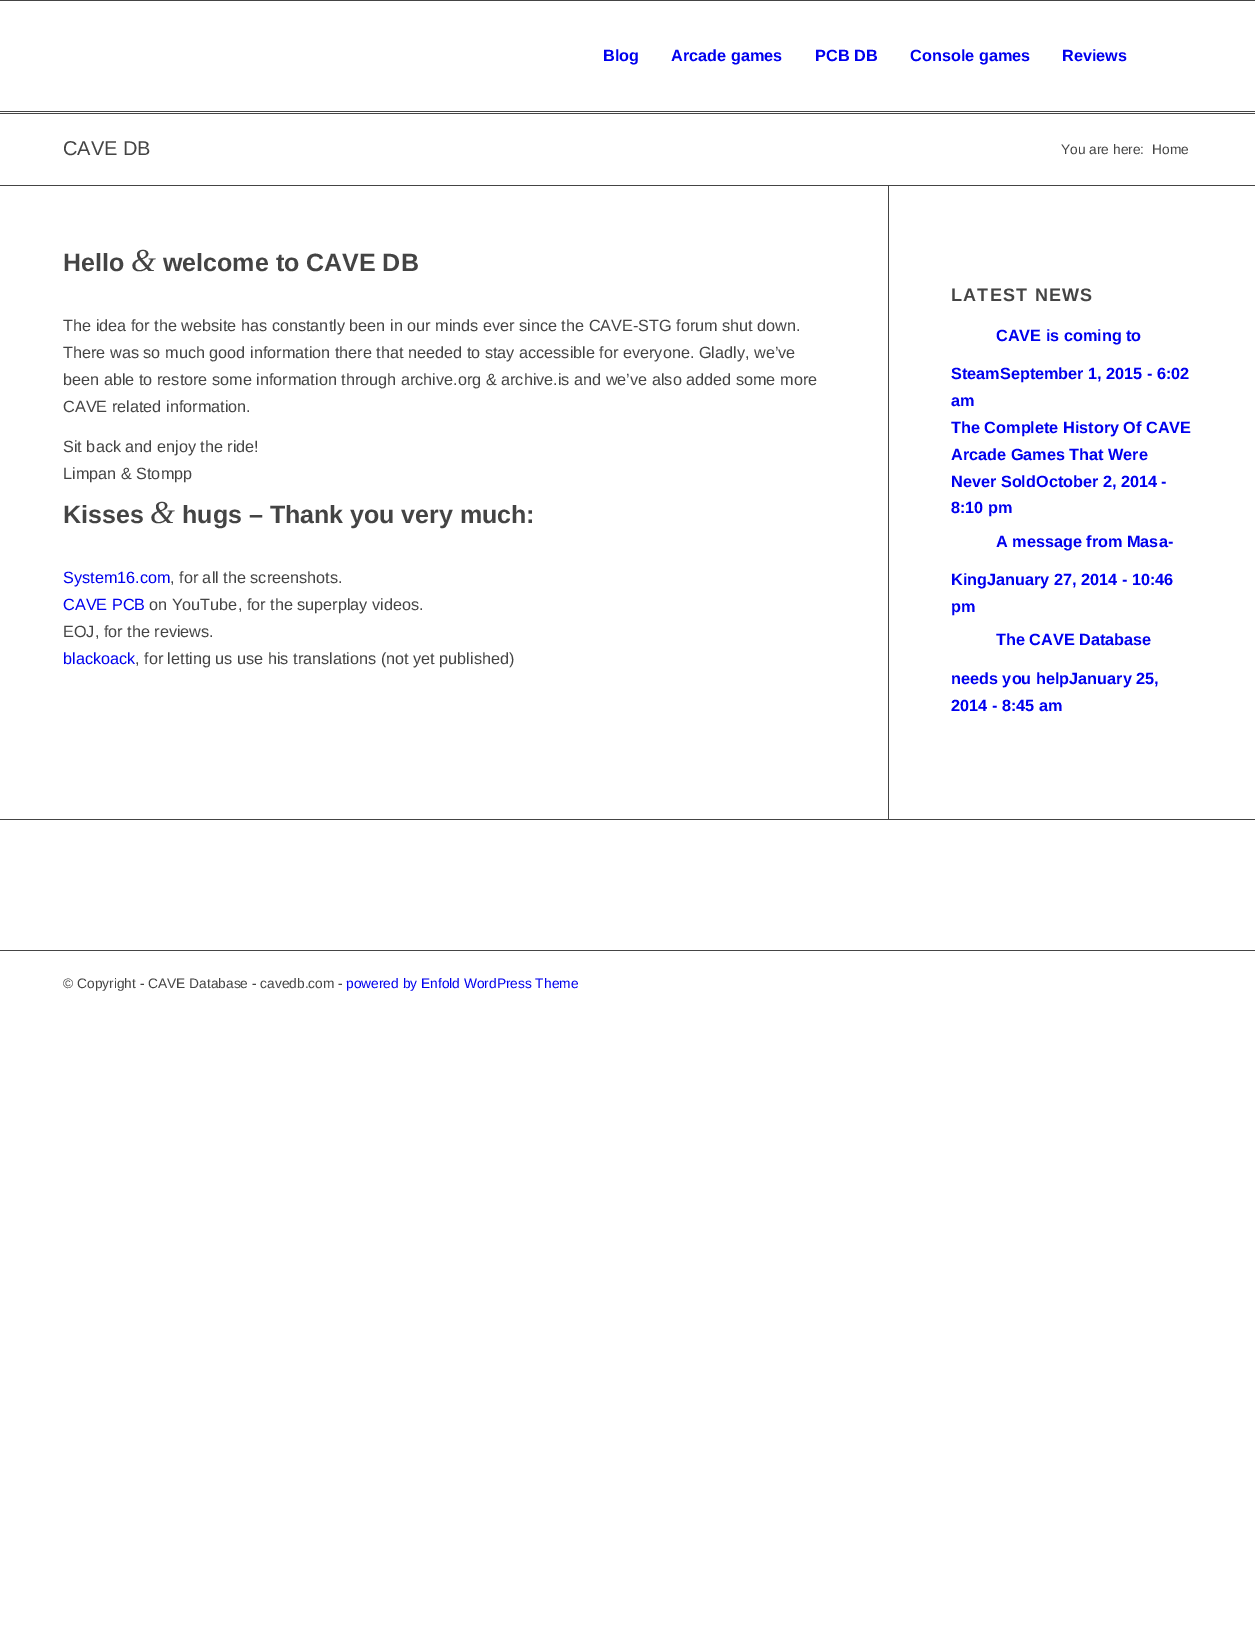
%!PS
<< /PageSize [1255 1628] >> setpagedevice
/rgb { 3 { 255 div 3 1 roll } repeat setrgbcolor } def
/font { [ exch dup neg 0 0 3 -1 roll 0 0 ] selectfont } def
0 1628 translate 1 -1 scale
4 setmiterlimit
255 255 255 rgb
0 0 1255 1628 rectfill
[
  [0 0 1255 1 68 68 68]
  [0 111 1255 1 68 68 68]
  [0 113 1255 1 68 68 68]
  [0 185 1255 1 68 68 68]
  [888 186 1 633 68 68 68]
  [0 819 1255 1 68 68 68]
  [0 950 1255 1 68 68 68]
] { aload pop rgb rectfill } forall
/LiberationSans-Bold 16.25 font
0 0 238 rgb
[
  [(Blog) 603 61]
  [(Arcade games) 671 61]
  [(PCB DB) 815 61]
  [(Console games) 910 61]
  [(Reviews) 1062 61]
] { aload pop moveto show } forall
/LiberationSans-Regular 20 font
68 68 68 rgb
63 155 moveto (CAVE DB) show
/LiberationSans-Regular 13.75 font
1061 154 moveto (You are here:) show
1152 154 moveto (Home) show
/LiberationSans-Bold 25 font
63 271 moveto (Hello) show
/LiberationSerif-Italic 32 font
131 271 moveto (&) show
/LiberationSans-Bold 25 font
163 271 moveto (welcome to CAVE DB) show
/LiberationSans-Regular 16.25 font
[
  [(The idea for the website has constantly been in our minds ever since the CAVE-STG forum shut down.) 63 331]
  [(There was so much good information there that needed to stay accessible for everyone. Gladly, we’ve) 63 358]
  [(been able to restore some information through archive.org & archive.is and we’ve also added some more) 63 385]
  [(CAVE related information.) 63 412]
  [(Sit back and enjoy the ride!) 63 452]
  [(Limpan & Stompp) 63 479]
] { aload pop moveto show } forall
/LiberationSans-Bold 25 font
63 523 moveto (Kisses) show
/LiberationSerif-Italic 32 font
150 523 moveto (&) show
/LiberationSans-Bold 25 font
182 523 moveto (hugs – Thank you very much:) show
/LiberationSans-Regular 16.25 font
0 0 238 rgb
63 583 moveto (System16.com) show
68 68 68 rgb
170 583 moveto (, for all the screenshots.) show
0 0 238 rgb
63 610 moveto (CAVE PCB) show
68 68 68 rgb
149 610 moveto (on YouTube, for the superplay videos.) show
63 637 moveto (EOJ, for the reviews.) show
0 0 238 rgb
63 664 moveto (blackoack) show
68 68 68 rgb
135 664 moveto (, for letting us use his translations \(not yet published\)) show
/LiberationSans-Bold 18 font
951 301 moveto 1.25 0 (LATEST NEWS) ashow
/LiberationSans-Bold 16.25 font
0 0 238 rgb
[
  [(CAVE is coming to) 996 341]
  [(SteamSeptember 1, 2015 - 6:02) 951 379]
  [(am) 951 406]
  [(The Complete History Of CAVE) 951 433]
  [(Arcade Games That Were) 951 460]
  [(Never SoldOctober 2, 2014 -) 951 487]
  [(8:10 pm) 951 513]
  [(A message from Masa-) 996 547]
  [(KingJanuary 27, 2014 - 10:46) 951 585]
  [(pm) 951 612]
  [(The CAVE Database) 996 645]
  [(needs you helpJanuary 25,) 951 684]
  [(2014 - 8:45 am) 951 711]
] { aload pop moveto show } forall
/LiberationSans-Regular 13.75 font
68 68 68 rgb
63 988 moveto (© Copyright - CAVE Database - cavedb.com -) show
0 0 238 rgb
346 988 moveto (powered by Enfold WordPress Theme) show
showpage
